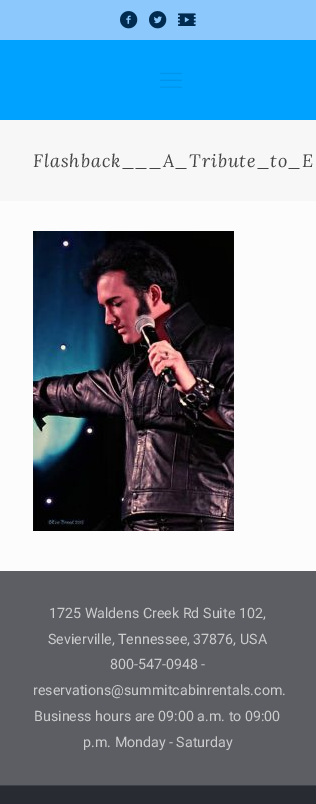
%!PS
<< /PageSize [316 804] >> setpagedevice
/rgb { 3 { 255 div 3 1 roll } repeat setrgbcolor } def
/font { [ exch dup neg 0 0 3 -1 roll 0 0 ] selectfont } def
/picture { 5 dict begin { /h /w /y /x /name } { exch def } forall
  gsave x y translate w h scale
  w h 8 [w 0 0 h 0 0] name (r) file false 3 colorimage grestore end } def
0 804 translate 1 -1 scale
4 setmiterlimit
252 252 252 rgb
0 0 316 804 rectfill
140 200 252 rgb
0 0 316 40 rectfill
(img/1.rgb) 120 11 18 18 picture
(img/2.rgb) 149 11 18 18 picture
(img/3.rgb) 178 13 18 13 picture
0 162 255 rgb
0 40 316 80 rectfill
(img/4.rgb) 160 72 22 16 picture
247 247 247 rgb
0 120 316 81 rectfill
(img/5.rgb) 33 231 201 300 picture
[
  [0 786 316 18 41 43 51]
  [0 571 316 214 92 94 100]
  [0 785 316 1 62 64 71]
] { aload pop rgb rectfill } forall
/Lora-Italic 18 font
68 68 68 rgb
33 167 moveto 1 0 (Flashback___A_Tribute_to_E) ashow
/Roboto-Regular 14.25 font
204 204 204 rgb
[
  [(1725 Waldens Creek Rd Suite 102,) 49 618]
  [(Sevierville, Tennessee, 37876, USA) 48 644]
  [(800-547-0948 -) 110 669]
  [(reservations@summitcabinrentals.com.) 33 695]
  [(Business hours are 09:00 a.m. to 09:00) 34 721]
  [(p.m. Monday - Saturday) 83 747]
] { aload pop moveto show } forall
showpage
